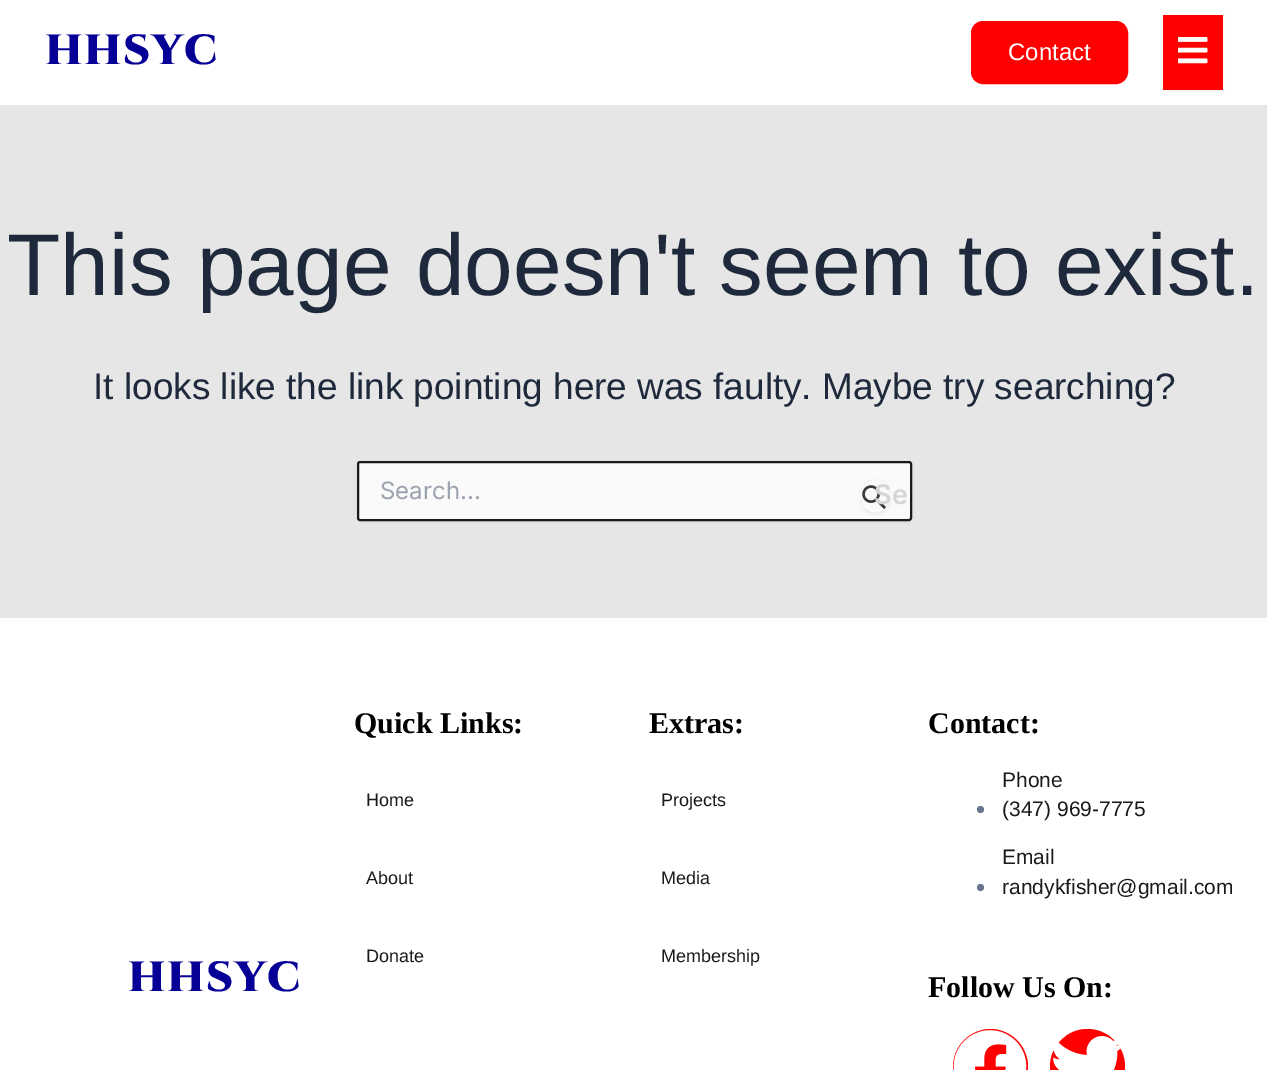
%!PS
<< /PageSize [1267 1070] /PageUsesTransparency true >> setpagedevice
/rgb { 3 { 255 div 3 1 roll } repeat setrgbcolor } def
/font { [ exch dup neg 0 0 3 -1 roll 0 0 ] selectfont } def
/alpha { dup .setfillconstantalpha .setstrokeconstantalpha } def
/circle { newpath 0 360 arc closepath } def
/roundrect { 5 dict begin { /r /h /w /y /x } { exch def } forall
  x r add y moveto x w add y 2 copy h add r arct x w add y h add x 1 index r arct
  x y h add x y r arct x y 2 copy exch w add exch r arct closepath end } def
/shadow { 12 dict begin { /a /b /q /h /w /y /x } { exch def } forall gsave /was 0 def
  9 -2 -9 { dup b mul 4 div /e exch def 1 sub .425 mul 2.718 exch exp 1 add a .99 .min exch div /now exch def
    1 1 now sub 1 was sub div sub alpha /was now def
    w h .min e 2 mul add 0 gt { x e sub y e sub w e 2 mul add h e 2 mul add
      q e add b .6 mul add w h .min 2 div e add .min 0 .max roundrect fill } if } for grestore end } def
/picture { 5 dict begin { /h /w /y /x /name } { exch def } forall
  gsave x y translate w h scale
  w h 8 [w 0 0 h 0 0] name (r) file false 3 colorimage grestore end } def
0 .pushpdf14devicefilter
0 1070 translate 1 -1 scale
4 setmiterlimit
230 230 230 rgb
0 0 1267 1070 rectfill
255 255 255 rgb
0 0 1267 105 rectfill
255 0 0 rgb
972 22 155 61 11 roundrect gsave fill grestore
2 setlinewidth
stroke
0 0 0 rgb
1163 17 60 75 0 1.5 0.05 shadow
255 0 0 rgb
1163 15 60 75 rectfill
(img/1.rgb) 1178 37 30 27 picture
0 0 0 rgb
357 462 555 60 3 1.5 0.05 shadow
250 250 250 rgb
358 462 553 58 2 roundrect gsave fill grestore
26 26 26 rgb
stroke
gsave
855 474 moveto 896 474 lineto 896 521 lineto 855 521 lineto closepath 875.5 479 moveto 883.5 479 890 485.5 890 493.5 curveto 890 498.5 lineto 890 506.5 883.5 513 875.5 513 curveto 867.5 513 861 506.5 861 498.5 curveto 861 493.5 lineto 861 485.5 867.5 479 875.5 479 curveto closepath eoclip newpath
0 0 0 rgb
861 480 29 35 14.5 1.5 0.05 shadow
grestore
(img/2.rgb) 862 485 24 24 picture
255 255 255 rgb
0 618 1267 452 rectfill
103 118 142 rgb
980.5 809.5 3.5 circle fill
980.5 887.5 3.5 circle fill
255 0 0 rgb
990.5 1066.5 37.5 circle fill
(img/3.rgb) 953 1030 74 40 picture
1087.5 1066.5 37.5 circle fill
(img/4.rgb) 1053 1036 68 34 picture
/Cinzel-Black 42 font
6 0 151 rgb
45 64 moveto 1.5 0 (HHSYC) ashow
/LiberationSans-Regular 24 font
255 255 255 rgb
1008 60 moveto (Contact) show
/LiberationSans-Regular 87.5 font
30 41 59 rgb
7 295 moveto (This page doesn't seem to exist.) show
/LiberationSans-Regular 36.95 font
93 399 moveto (It looks like the link pointing here was faulty. Maybe try searching?) show
/Inter-Regular 24 font
156 163 175 rgb
380 499 moveto (Search...) show
/Inter-SemiBold 27 font
213 213 213 rgb
874 504 moveto (Se) show
/Cinzel-Black 42 font
6 0 151 rgb
128 991 moveto 1.5 0 (HHSYC) ashow
/LiberationSerif-Bold 30 font
0 0 0 rgb
354 733 moveto (Quick Links:) show
/LiberationSans-Regular 18 font
26 26 26 rgb
[
  [(Home) 366 806]
  [(About) 366 884]
  [(Donate) 366 962]
] { aload pop moveto show } forall
/LiberationSerif-Bold 30 font
0 0 0 rgb
649 733 moveto (Extras:) show
/LiberationSans-Regular 18 font
26 26 26 rgb
[
  [(Projects) 661 806]
  [(Media) 661 884]
  [(Membership) 661 962]
] { aload pop moveto show } forall
/LiberationSerif-Bold 30 font
0 0 0 rgb
928 733 moveto (Contact:) show
/LiberationSans-Regular 21 font
26 26 26 rgb
[
  [(Phone) 1002 787]
  [(\(347\) 969-7775) 1002 816]
  [(Email) 1002 864]
  [(randykfisher@gmail.com) 1002 894]
] { aload pop moveto show } forall
/LiberationSerif-Bold 30 font
0 0 0 rgb
928 997 moveto (Follow Us On:) show
.poppdf14devicefilter showpage
